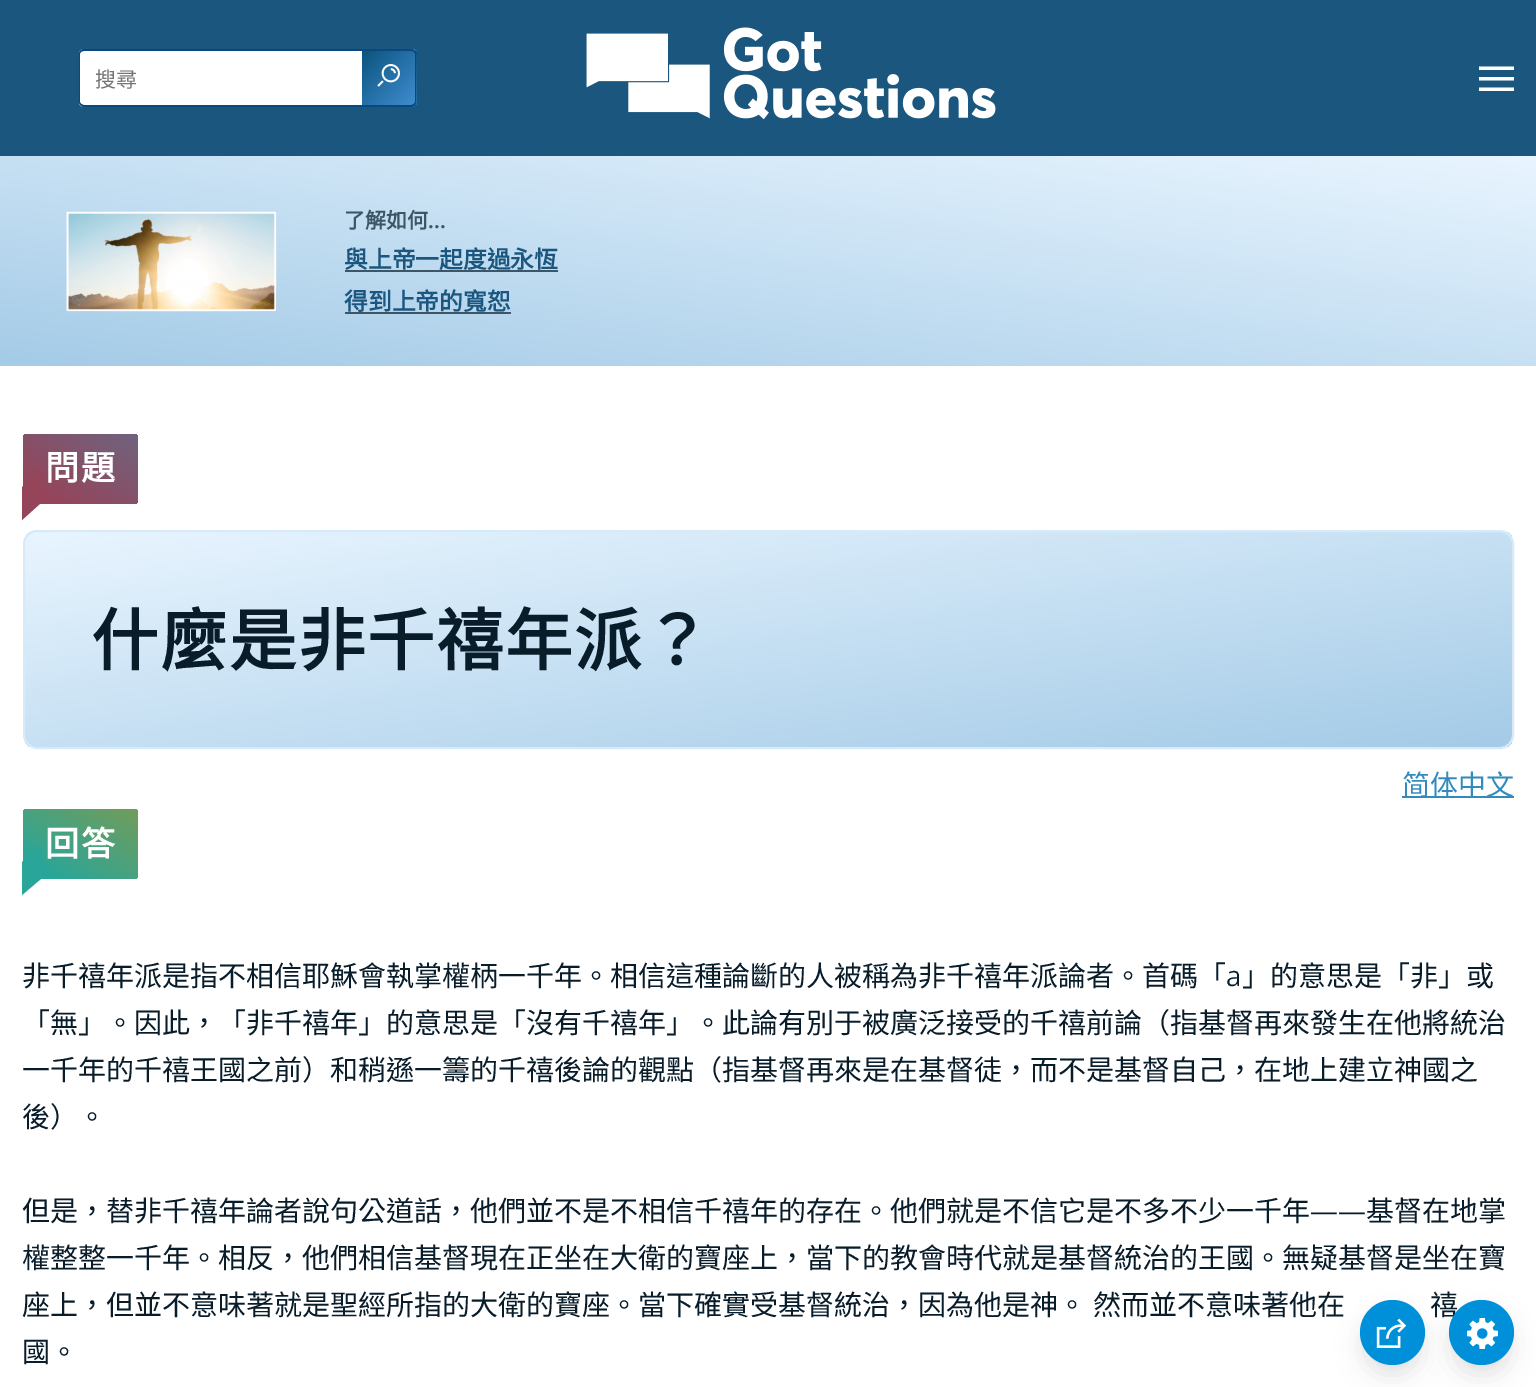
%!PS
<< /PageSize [1536 1387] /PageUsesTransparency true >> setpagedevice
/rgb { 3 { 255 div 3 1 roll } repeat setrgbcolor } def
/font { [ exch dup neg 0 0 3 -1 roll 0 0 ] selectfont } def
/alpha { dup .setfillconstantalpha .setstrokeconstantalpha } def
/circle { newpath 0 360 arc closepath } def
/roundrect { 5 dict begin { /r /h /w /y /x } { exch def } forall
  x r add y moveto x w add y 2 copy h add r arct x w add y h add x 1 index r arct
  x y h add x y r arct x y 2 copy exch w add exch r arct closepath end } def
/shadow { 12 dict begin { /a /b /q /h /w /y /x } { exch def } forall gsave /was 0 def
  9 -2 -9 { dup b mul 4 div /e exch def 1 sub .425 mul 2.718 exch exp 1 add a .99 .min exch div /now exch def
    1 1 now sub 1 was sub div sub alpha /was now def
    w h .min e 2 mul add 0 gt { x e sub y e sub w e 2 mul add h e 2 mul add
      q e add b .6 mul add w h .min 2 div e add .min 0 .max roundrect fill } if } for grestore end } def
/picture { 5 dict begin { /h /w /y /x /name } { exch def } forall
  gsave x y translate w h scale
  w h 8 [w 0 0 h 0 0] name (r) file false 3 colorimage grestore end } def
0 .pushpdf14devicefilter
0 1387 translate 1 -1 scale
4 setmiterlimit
255 255 255 rgb
0 0 1536 1387 rectfill
26 86 126 rgb
0 0 1536 156 rectfill
255 255 255 rgb
84 49 moveto 362 49 lineto 362 107 lineto 84 107 lineto 81 107 79 105 79 102 curveto 79 54 lineto 79 51 81 49 84 49 curveto closepath fill
9 72 129 rgb
84 49 moveto 362 49 lineto 362 107 lineto 84 107 lineto 81 107 79 104 79 102 curveto 79 54 lineto 79 51 81 49 84 49 curveto closepath 84 51 moveto 362 51 lineto 362 105 lineto 84 105 lineto 82 105 80 103 80 102 curveto 80 54 lineto 80 52 82 51 84 51 curveto closepath eofill
gsave 411 49 moveto 415 49 lineto 415 51 lineto 411 51 lineto closepath clip newpath
<< /ShadingType 2 /ColorSpace /DeviceRGB /Coords [361 -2.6 416 50] /Extend [true true] /Function << /FunctionType 2 /Domain [0 1] /C0 [0.039 0.329 0.49] /C1 [0.251 0.549 0.816] /N 1 >> >> shfill grestore
gsave
362 49 moveto 412 49 lineto 415 49 417 51 417 54 curveto 417 102 lineto 417 105 415 107 412 107 curveto 362 107 lineto closepath clip newpath
gsave 415 50 moveto 417 50 lineto 417 51 lineto 415 51 lineto closepath clip newpath
<< /ShadingType 2 /ColorSpace /DeviceRGB /Coords [414 -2.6 468 50] /Extend [true true] /Function << /FunctionType 2 /Domain [0 1] /C0 [0.039 0.329 0.49] /C1 [0.251 0.549 0.816] /N 1 >> >> shfill grestore
grestore
gsave 362 51 moveto 415 51 lineto 415 105 lineto 362 105 lineto closepath clip newpath
<< /ShadingType 2 /ColorSpace /DeviceRGB /Coords [361 52 416 104] /Extend [true true] /Function << /FunctionType 2 /Domain [0 1] /C0 [0.039 0.329 0.49] /C1 [0.251 0.549 0.816] /N 1 >> >> shfill grestore
gsave
362 49 moveto 412 49 lineto 415 49 417 51 417 54 curveto 417 102 lineto 417 105 415 107 412 107 curveto 362 107 lineto closepath clip newpath
gsave 415 51 moveto 417 51 lineto 417 105 lineto 415 105 lineto closepath clip newpath
<< /ShadingType 2 /ColorSpace /DeviceRGB /Coords [414 52 468 104] /Extend [true true] /Function << /FunctionType 2 /Domain [0 1] /C0 [0.039 0.329 0.49] /C1 [0.251 0.549 0.816] /N 1 >> >> shfill grestore
grestore
gsave 411 105 moveto 415 105 lineto 415 107 lineto 411 107 lineto closepath clip newpath
<< /ShadingType 2 /ColorSpace /DeviceRGB /Coords [361 106 416 158] /Extend [true true] /Function << /FunctionType 2 /Domain [0 1] /C0 [0.039 0.329 0.49] /C1 [0.251 0.549 0.816] /N 1 >> >> shfill grestore
gsave
362 49 moveto 412 49 lineto 415 49 417 51 417 54 curveto 417 102 lineto 417 105 415 107 412 107 curveto 362 107 lineto closepath clip newpath
gsave 415 105 moveto 417 105 lineto 417 106 lineto 415 106 lineto closepath clip newpath
<< /ShadingType 2 /ColorSpace /DeviceRGB /Coords [414 106 468 158] /Extend [true true] /Function << /FunctionType 2 /Domain [0 1] /C0 [0.039 0.329 0.49] /C1 [0.251 0.549 0.816] /N 1 >> >> shfill grestore
grestore
362 49 moveto 411 49 lineto 414 49 416 51 416 54 curveto 416 102 lineto 416 104 414 107 411 107 curveto 362 107 lineto closepath 362 51 moveto 411 51 lineto 413 51 415 52 415 54 curveto 415 102 lineto 415 103 413 105 411 105 curveto 362 105 lineto closepath eofill
(img/1.rgb) 377 64 23 23 picture
(img/2.rgb) 586 27 410 93 picture
255 255 255 rgb
1479 66.5 moveto 1514 66.5 lineto 1514 70 lineto 1479 70 lineto closepath 1479 77 moveto 1514 77 lineto 1514 80.5 lineto 1479 80.5 lineto closepath 1479 87.5 moveto 1514 87.5 lineto 1514 91 lineto 1479 91 lineto closepath fill
gsave 0 156 moveto 1536 156 lineto 1536 366 lineto 0 366 lineto closepath clip newpath
<< /ShadingType 2 /ColorSpace /DeviceRGB /Coords [740 467 796 55] /Extend [true true] /Function << /FunctionType 2 /Domain [0 1] /C0 [0.643 0.796 0.906] /C1 [0.914 0.961 1] /N 1 >> >> shfill grestore
(img/3.rgb) 66 211 211 101 picture
61 85 101 rgb
345 270 213 2 rectfill
345 312 166 2 rectfill
gsave 23 434 115 70 4 roundrect clip newpath
<< /ShadingType 2 /ColorSpace /DeviceRGB /Coords [49 520 112 418] /Extend [true true] /Function << /FunctionType 3 /Domain [0 1] /Functions [<< /FunctionType 2 /Domain [0 1] /C0 [0.588 0.267 0.353] /C1 [0.588 0.267 0.353] /N 1 >> << /FunctionType 2 /Domain [0 1] /C0 [0.588 0.267 0.353] /C1 [0.435 0.388 0.494] /N 1 >>] /Bounds [0.15] /Encode [0 1 0 1] >> >> shfill grestore
150 68 90 rgb
22 487 moveto 42 469 lineto 42 502 lineto 22 520 lineto closepath fill
gsave
23 530 1491 219 14 roundrect clip newpath
gsave 25 532 moveto 1512 532 lineto 1512 747 lineto 25 747 lineto closepath clip newpath
<< /ShadingType 2 /ColorSpace /DeviceRGB /Coords [738 429 799 850] /Extend [true true] /Function << /FunctionType 2 /Domain [0 1] /C0 [0.914 0.961 1] /C1 [0.643 0.796 0.906] /N 1 >> >> shfill grestore
grestore
214 234 249 rgb
2 setlinewidth
24 531 1489 217 13 roundrect stroke
51 139 189 rgb
1402 796 112 2 rectfill
gsave 23 809 115 70 4 roundrect clip newpath
<< /ShadingType 2 /ColorSpace /DeviceRGB /Coords [49 895 112 792] /Extend [true true] /Function << /FunctionType 3 /Domain [0 1] /Functions [<< /FunctionType 2 /Domain [0 1] /C0 [0.161 0.651 0.6] /C1 [0.161 0.651 0.6] /N 1 >> << /FunctionType 2 /Domain [0 1] /C0 [0.161 0.651 0.6] /C1 [0.455 0.612 0.353] /N 1 >>] /Bounds [0.15] /Encode [0 1 0 1] >> >> shfill grestore
41 166 153 rgb
22 862 moveto 42 845 lineto 42 878 lineto 22 895 lineto closepath fill
0 0 0 rgb
1365 1311 54 54 27 9.5 0.05 shadow
1454 1311 55 54 27 9.5 0.05 shadow
1454 1320 55 54 27 14 0.1 shadow
/NotoSansCJKTC-Regular 21 font
117 117 117 rgb
95 87 moveto (搜尋) show
/NotoSansCJKTC-Bold 21 font
61 85 101 rgb
344 228 moveto (了解如何) show
/NotoSans-SemiBold 21 font
428 228 moveto (...) show
/NotoSansCJKTC-Bold 23.75 font
26 86 126 rgb
344 268 moveto (與上帝一起度過永恆) show
344 310 moveto (得到上帝的寬恕) show
/NotoSansCJKTC-Bold 34 font
255 255 255 rgb
45 480 moveto 1.75 0 (問題) ashow
/NotoSansCJKTC-Bold 67.25 font
8 28 42 rgb
91 665 moveto 1.75 0 (什麼是非千禧年派？) ashow
/NotoSansCJKTC-Regular 28 font
51 139 189 rgb
1402 795 moveto (简体中文) show
/NotoSansCJKTC-Bold 34 font
255 255 255 rgb
45 856 moveto 1.75 0 (回答) ashow
/NotoSansCJKTC-Regular 28 font
8 28 42 rgb
22 986 moveto (非千禧年派是指不相信耶穌會執掌權柄一千年。相信這種論斷的人被稱為非千禧年派論者。首碼「) show
/NotoSans-Light 28 font
1226 986 moveto (a) show
/NotoSansCJKTC-Regular 28 font
[
  [(」的意思是「非」或) 1242 986]
  [(「無」。因此，「非千禧年」的意思是「沒有千禧年」。此論有別于被廣泛接受的千禧前論（指基督再來發生在他將統治) 22 1033]
  [(一千年的千禧王國之前）和稍遜一籌的千禧後論的觀點（指基督再來是在基督徒，而不是基督自己，在地上建立神國之) 22 1080]
  [(後）。) 22 1127]
  [(但是，替非千禧年論者說句公道話，他們並不是不相信千禧年的存在。他們就是不信它是不多不少一千年) 22 1221]
] { aload pop moveto show } forall
/NotoSans-Light 28 font
1310 1221 moveto (——) show
/NotoSansCJKTC-Regular 28 font
1366 1221 moveto (基督在地掌) show
22 1268 moveto (權整整一千年。相反，他們相信基督現在正坐在大衛的寶座上，當下的教會時代就是基督統治的王國。無疑基督是坐在寶) show
22 1315 moveto 1 0 32 (座上，但並不意味著就是聖經所指的大衛的寶座。當下確實受基督統治，因為他是神。 然而並不意味著他在) widthshow
1430 1315 moveto 1 0 32 (禧) widthshow
22 1362 moveto (國。) show
0 144 217 rgb
1481.5 1332.5 32.5 circle fill
0 0 0 rgb
1365 1320 54 54 27 14 0.1 shadow
0 144 217 rgb
1392.5 1332.5 32.5 circle fill
(img/4.rgb) 1376 1318 31 30 picture
(img/5.rgb) 1467 1318 31 31 picture
.poppdf14devicefilter showpage
